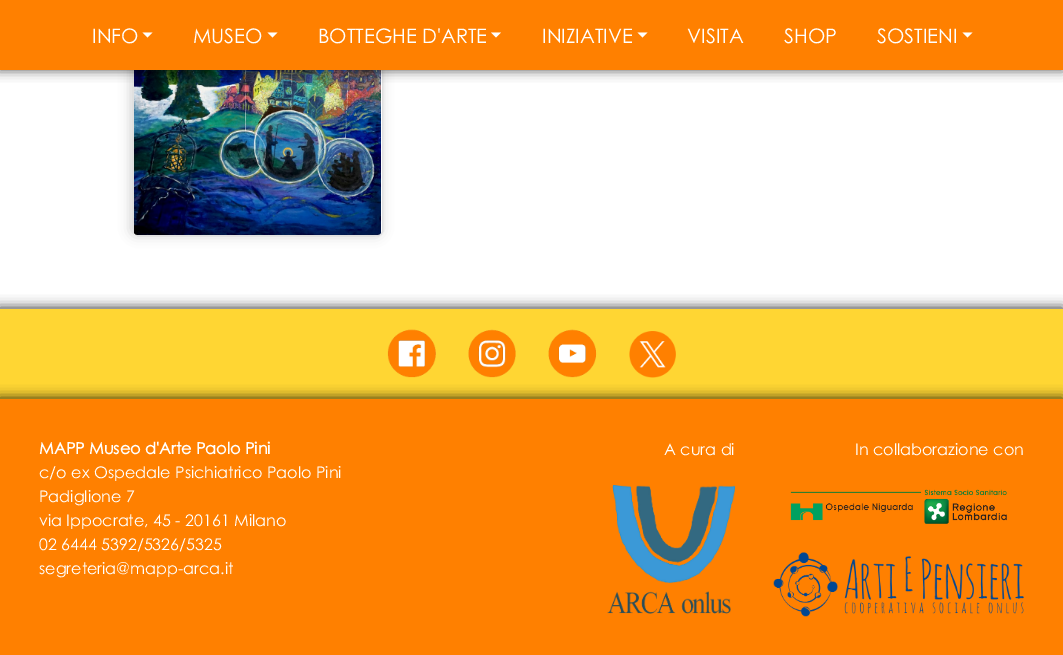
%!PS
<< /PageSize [1063 655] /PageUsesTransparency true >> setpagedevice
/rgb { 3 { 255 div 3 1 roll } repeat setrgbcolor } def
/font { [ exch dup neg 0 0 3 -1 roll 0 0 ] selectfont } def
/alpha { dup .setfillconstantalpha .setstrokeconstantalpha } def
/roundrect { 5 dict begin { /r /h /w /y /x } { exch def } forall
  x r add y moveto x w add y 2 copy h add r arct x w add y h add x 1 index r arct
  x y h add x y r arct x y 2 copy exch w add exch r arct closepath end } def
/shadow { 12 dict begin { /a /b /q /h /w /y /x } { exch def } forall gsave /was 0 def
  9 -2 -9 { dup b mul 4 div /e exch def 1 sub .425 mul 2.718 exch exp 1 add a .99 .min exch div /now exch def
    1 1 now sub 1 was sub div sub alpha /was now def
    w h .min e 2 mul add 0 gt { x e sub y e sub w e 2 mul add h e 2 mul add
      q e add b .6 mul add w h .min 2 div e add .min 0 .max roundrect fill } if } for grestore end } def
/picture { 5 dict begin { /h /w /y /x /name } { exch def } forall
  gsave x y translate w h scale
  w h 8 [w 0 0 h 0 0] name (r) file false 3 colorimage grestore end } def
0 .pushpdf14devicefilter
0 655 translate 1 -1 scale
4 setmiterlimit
255 255 255 rgb
0 0 1063 655 rectfill
0 0 0 rgb
131 -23 250 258 5 6 0.2 shadow
255 255 255 rgb
133 -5 250 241 5 roundrect fill
0.12 alpha
0 0 0 rgb
133.5 -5.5 249 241 4.5 roundrect stroke
1 alpha
(img/1.rgb) 134 70 247 165 picture
-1 -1 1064 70 0 6 0.8 shadow
255 128 0 rgb
0 0 1063 70 rectfill
255 255 255 rgb
142.5 32.5 moveto 152.5 32.5 lineto 147.5 37.5 lineto closepath fill
267.5 32.5 moveto 277.5 32.5 lineto 272.5 37.5 lineto closepath fill
491 32.5 moveto 501 32.5 lineto 496 37.5 lineto closepath fill
637.5 32.5 moveto 647.5 32.5 lineto 642.5 37.5 lineto closepath fill
962.5 32.5 moveto 972.5 32.5 lineto 967.5 37.5 lineto closepath fill
0 0 0 rgb
-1 308 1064 90 0 6 0.8 shadow
255 214 51 rgb
0 309 1063 90 rectfill
(img/2.rgb) 387 329 49 49 picture
(img/3.rgb) 468 329 48 49 picture
(img/4.rgb) 548 329 49 49 picture
(img/5.rgb) 629 331 47 47 picture
0 0 0 rgb
-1 398 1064 256 0 6 0.8 shadow
255 128 0 rgb
0 399 1063 256 rectfill
(img/6.rgb) 607 485 128 129 picture
(img/7.rgb) 790 489 217 35 picture
(img/8.rgb) 773 552 251 65 picture
/CenturyGothic-Regular 20 font
255 255 255 rgb
[
  [(INFO) 92 43]
  [(MUSEO) 193 43]
  [(BOTTEGHE D'ARTE) 318 43]
  [(INIZIATIVE) 542 43]
  [(VISITA) 687 43]
  [(SHOP) 784 43]
  [(SOSTIENI) 877 43]
] { aload pop moveto show } forall
/CenturyGothic-Bold 16 font
39 454 moveto (MAPP Museo d'Arte Paolo Pini) show
/CenturyGothic-Regular 16 font
[
  [(c/o ex Ospedale Psichiatrico Paolo Pini) 39 478]
  [(Padiglione 7) 39 502]
  [(via Ippocrate, 45 - 20161 Milano) 39 526]
  [(02 6444 5392/5326/5325) 39 550]
  [(segreteria@mapp-arca.it) 39 574]
  [(A cura di) 664 455]
  [(In collaborazione con) 855 455]
] { aload pop moveto show } forall
.poppdf14devicefilter showpage
